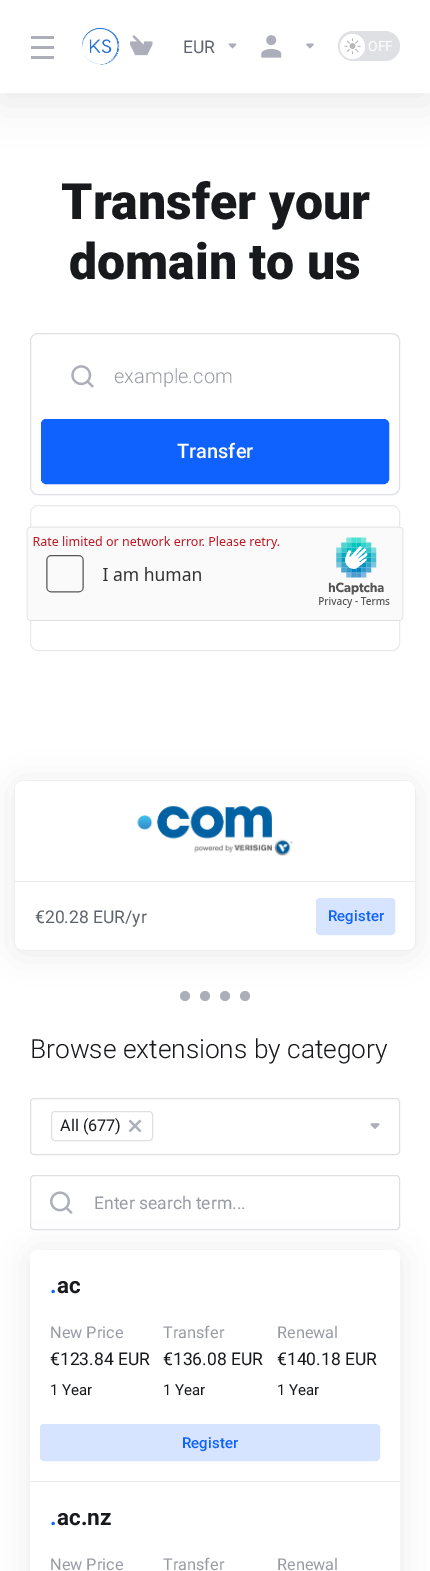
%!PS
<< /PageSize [430 1571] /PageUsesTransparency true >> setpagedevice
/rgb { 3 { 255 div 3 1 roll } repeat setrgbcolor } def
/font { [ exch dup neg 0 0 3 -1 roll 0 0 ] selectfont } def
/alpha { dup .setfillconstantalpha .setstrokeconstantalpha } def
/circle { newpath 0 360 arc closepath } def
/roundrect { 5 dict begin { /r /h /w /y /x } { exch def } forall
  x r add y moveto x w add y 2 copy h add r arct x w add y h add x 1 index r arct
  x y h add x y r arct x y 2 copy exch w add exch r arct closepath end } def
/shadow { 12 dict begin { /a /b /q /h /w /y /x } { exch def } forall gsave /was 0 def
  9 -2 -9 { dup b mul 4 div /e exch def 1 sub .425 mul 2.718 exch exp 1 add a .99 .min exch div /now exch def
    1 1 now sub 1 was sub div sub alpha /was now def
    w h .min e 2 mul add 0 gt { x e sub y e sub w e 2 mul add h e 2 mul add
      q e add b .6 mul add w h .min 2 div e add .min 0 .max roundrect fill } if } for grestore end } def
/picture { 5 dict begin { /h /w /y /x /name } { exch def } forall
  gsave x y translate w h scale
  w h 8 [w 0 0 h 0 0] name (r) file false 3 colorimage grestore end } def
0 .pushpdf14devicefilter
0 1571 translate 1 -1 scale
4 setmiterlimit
255 255 255 rgb
0 0 430 1571 rectfill
0 0 0 rgb
0 10 430 93 0 20 0.08 shadow
[
  [0 0 430 93 255 255 255]
  [31 36 23 3 172 175 185]
  [31 46 23 3 172 175 185]
  [31 56 23 3 172 175 185]
] { aload pop rgb rectfill } forall
(img/1.rgb) 82 28 38 37 picture
(img/2.rgb) 130 35 23 21 picture
(img/3.rgb) 228 43 9 6 picture
(img/4.rgb) 261 35 21 23 picture
(img/5.rgb) 306 43 8 6 picture
222 224 227 rgb
338 31 62 30 15 roundrect fill
255 255 255 rgb
352.5 46.5 12.5 circle fill
(img/6.rgb) 344 38 17 17 picture
222 224 227 rgb
30.5 333.5 369 161 7.5 roundrect stroke
(img/7.rgb) 71 365 23 23 picture
16 98 254 rgb
41.5 419.5 347 64 4.5 roundrect gsave fill grestore
stroke
233 234 236 rgb
30.5 505.5 369 145 7.5 roundrect stroke
(img/8.rgb) 26 526 378 95 picture
172 175 185 rgb
185 996 5 circle fill
205 996 5 circle fill
225 996 5 circle fill
245 996 5 circle fill
0 0 0 rgb
15 784 400 169 8 15 0.08 shadow
15 781 400 169 8 0.5 0.1 shadow
255 255 255 rgb
15 781 400 169 8 roundrect fill
(img/9.rgb) 137 806 156 50 picture
233 234 236 rgb
15 881 400 1 rectfill
214 228 255 rgb
316.5 898.5 78 36 3.5 roundrect gsave fill grestore
stroke
222 224 227 rgb
30.5 1098.5 369 56 3.5 roundrect stroke
51.5 1111.5 101 29 3.5 roundrect stroke
(img/10.rgb) 128 1119 14 14 picture
(img/11.rgb) 370 1123 10 6 picture
30.5 1175.5 369 54 3.5 roundrect stroke
(img/12.rgb) 50 1191 23 23 picture
0 0 0 rgb
30 1253 370 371 8 15 0.08 shadow
255 255 255 rgb
30 1250 370 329 8 roundrect fill
233 234 236 rgb
30 1481 370 1 rectfill
214 228 255 rgb
40.5 1424.5 339 36 3.5 roundrect gsave fill grestore
stroke
/Roboto-Regular 17.5 font
94 99 110 rgb
183 53 moveto (EUR) show
/Roboto-Regular 14 font
255 255 255 rgb
368 51 moveto (OFF) show
/Roboto-Black 50 font
23 25 28 rgb
61 219 moveto (Transfer your) show
69 279 moveto (domain to us) show
/Roboto-Light 20 font
151 155 164 rgb
114 383 moveto (example.com) show
/Roboto-Medium 20 font
255 255 255 rgb
177 458 moveto (Transfer) show
/Roboto-Regular 17.5 font
94 99 110 rgb
35 923 moveto (€20.28 EUR/yr) show
/Roboto-Medium 15 font
16 98 254 rgb
328 921 moveto (Register) show
/Roboto-Light 26.25 font
23 25 28 rgb
30 1058 moveto (Browse extensions by category) show
/Roboto-Regular 16.25 font
60 1131 moveto (All \(677\)) show
/Roboto-Regular 17.5 font
151 155 164 rgb
94 1209 moveto (Enter search term...) show
/Roboto-Bold 22.5 font
16 98 254 rgb
50 1293 moveto (.) show
23 25 28 rgb
57 1293 moveto (ac) show
/Roboto-Regular 16.25 font
151 155 164 rgb
50 1338 moveto (New Price) show
/Roboto-Regular 17.5 font
23 25 28 rgb
50 1365 moveto (€123.84 EUR) show
/Roboto-Regular 15 font
50 1395 moveto (1 Year) show
/Roboto-Regular 16.25 font
151 155 164 rgb
163 1338 moveto (Transfer) show
/Roboto-Regular 17.5 font
23 25 28 rgb
163 1365 moveto (€136.08 EUR) show
/Roboto-Regular 15 font
163 1395 moveto (1 Year) show
/Roboto-Regular 16.25 font
151 155 164 rgb
277 1338 moveto (Renewal) show
/Roboto-Regular 17.5 font
23 25 28 rgb
277 1365 moveto (€140.18 EUR) show
/Roboto-Regular 15 font
277 1395 moveto (1 Year) show
/Roboto-Medium 15 font
16 98 254 rgb
182 1448 moveto (Register) show
/Roboto-Bold 22.5 font
50 1525 moveto (.) show
23 25 28 rgb
57 1525 moveto (ac.nz) show
/Roboto-Regular 16.25 font
151 155 164 rgb
[
  [(New Price) 50 1570]
  [(Transfer) 163 1570]
  [(Renewal) 277 1570]
] { aload pop moveto show } forall
.poppdf14devicefilter showpage
